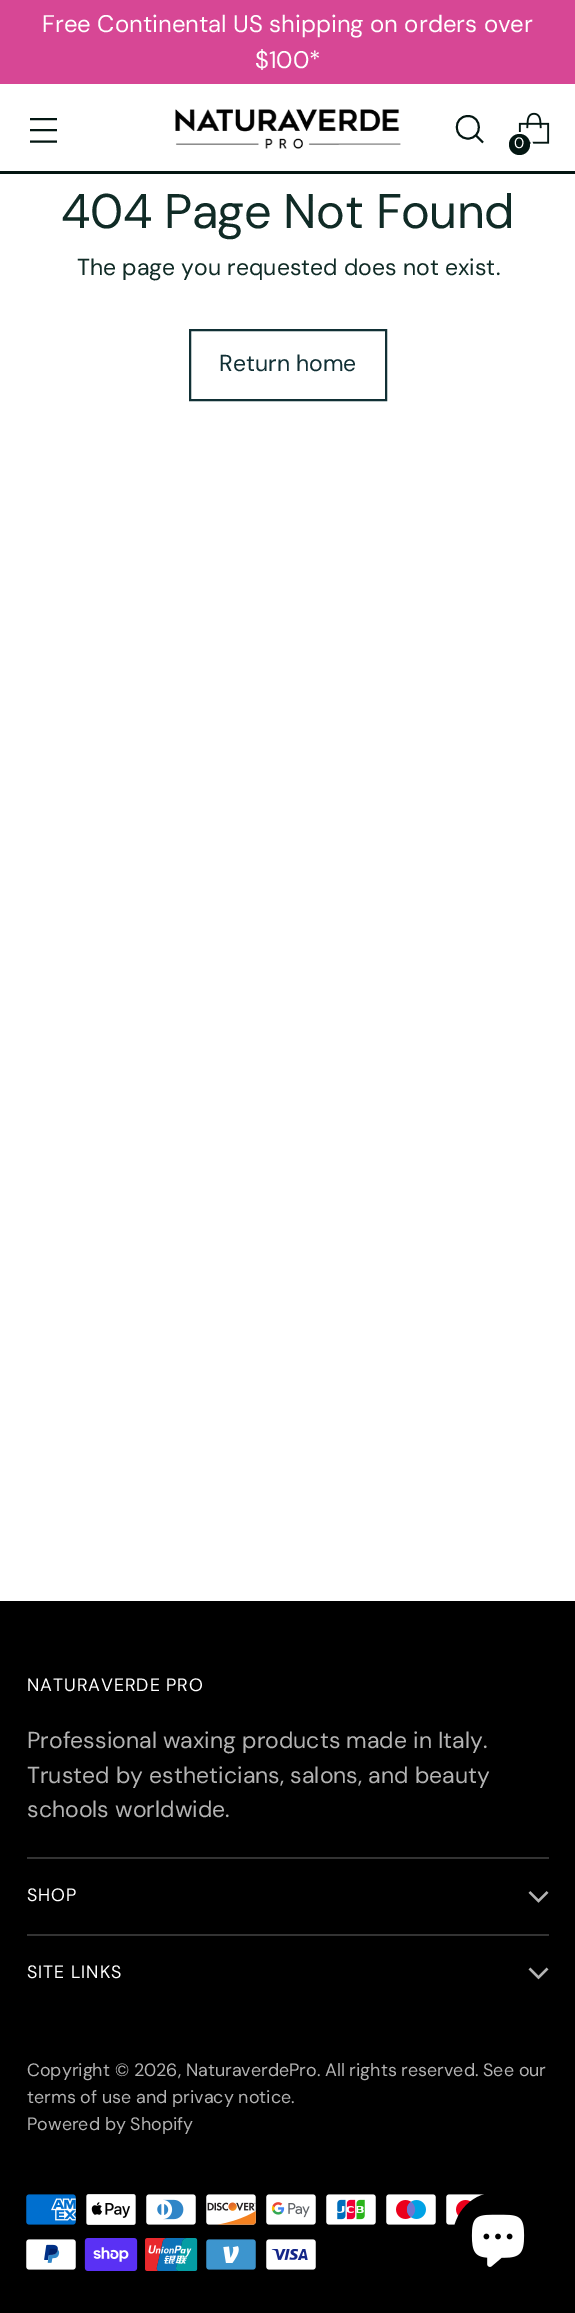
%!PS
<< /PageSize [575 2313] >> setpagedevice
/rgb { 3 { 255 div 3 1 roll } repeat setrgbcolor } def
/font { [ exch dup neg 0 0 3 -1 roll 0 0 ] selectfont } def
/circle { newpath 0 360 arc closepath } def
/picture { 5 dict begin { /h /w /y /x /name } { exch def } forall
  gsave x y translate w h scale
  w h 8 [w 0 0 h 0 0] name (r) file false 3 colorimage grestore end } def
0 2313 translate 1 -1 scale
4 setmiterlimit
255 255 255 rgb
0 0 575 2313 rectfill
215 71 149 rgb
0 0 575 84 rectfill
3 22 18 rgb
0 171 575 3 rectfill
1.9 setlinewidth
30 130 moveto 57 130 lineto 30 119 moveto 57 119 lineto 30 141.5 moveto 57 141.5 lineto stroke
(img/1.rgb) 175 109 226 40 picture
1 setlinecap
468 138.5 moveto 482.5 138.5 482.5 116 468 116 curveto 453 116 453 138.5 468 138.5 curveto closepath stroke
0 setlinecap
476 135.5 moveto 483 142.5 lineto stroke
(img/2.rgb) 518 112 32 32 picture
255 255 255 rgb
2 setlinewidth
520 145 12 circle stroke
3 22 18 rgb
519.5 144.5 10.5 circle fill
17 48 53 rgb
190 330 196 70 rectstroke
[
  [0 1601 575 712 0 0 0]
  [27 1857 522 2 51 51 51]
  [27 1934 522 2 51 51 51]
] { aload pop rgb rectfill } forall
179 179 179 rgb
2.4 setlinewidth
529.5 1892 moveto 538.5 1901 lineto 547.5 1892 lineto stroke
529.5 1968.5 moveto 538.5 1977.5 lineto 547.5 1968.5 lineto stroke
(img/3.rgb) 26 2194 50 31 picture
(img/4.rgb) 86 2194 50 31 picture
(img/5.rgb) 146 2194 50 31 picture
(img/6.rgb) 206 2194 50 31 picture
(img/7.rgb) 266 2194 50 31 picture
(img/8.rgb) 326 2194 50 31 picture
(img/9.rgb) 386 2194 50 31 picture
(img/10.rgb) 446 2194 39 31 picture
(img/11.rgb) 26 2239 50 31 picture
(img/12.rgb) 84 2238 54 33 picture
(img/13.rgb) 145 2238 53 33 picture
(img/14.rgb) 206 2239 50 31 picture
(img/15.rgb) 266 2239 50 31 picture
0 0 0 rgb
498 2237 45 circle fill
(img/16.rgb) 471 2214 54 53 picture
/DMSans-Regular 24 font
255 255 255 rgb
42 32 moveto (Free Continental US shipping on orders over) show
255 68 moveto ($100*) show
/DMSans-Regular 15 font
514 148 moveto (0) show
/DMSans-Regular 48.5 font
16 43 38 rgb
61 228 moveto -0.5 0 (404 Page Not Found) ashow
/DMSans-Regular 23.05 font
77 275 moveto (The page you requested does not exist.) show
17 48 53 rgb
219 371 moveto (Return home) show
/DMSans-Regular 17.9 font
255 255 255 rgb
27 1691 moveto 0.9 0 (NATURAVERDE PRO) ashow
/DMSans-Regular 23.05 font
179 179 179 rgb
[
  [(Professional waxing products made in Italy.) 27 1748]
  [(Trusted by estheticians, salons, and beauty) 27 1783]
  [(schools worldwide.) 27 1817]
] { aload pop moveto show } forall
/DMSans-Regular 17.9 font
255 255 255 rgb
27 1901 moveto 0.9 0 (SHOP) ashow
27 1978 moveto 0.9 0 (SITE LINKS) ashow
179 179 179 rgb
[
  [(Copyright © 2026, NaturaverdePro. All rights reserved. See our) 27 2076]
  [(terms of use and privacy notice.) 27 2103]
  [(Powered by Shopify) 27 2130]
] { aload pop moveto show } forall
showpage
